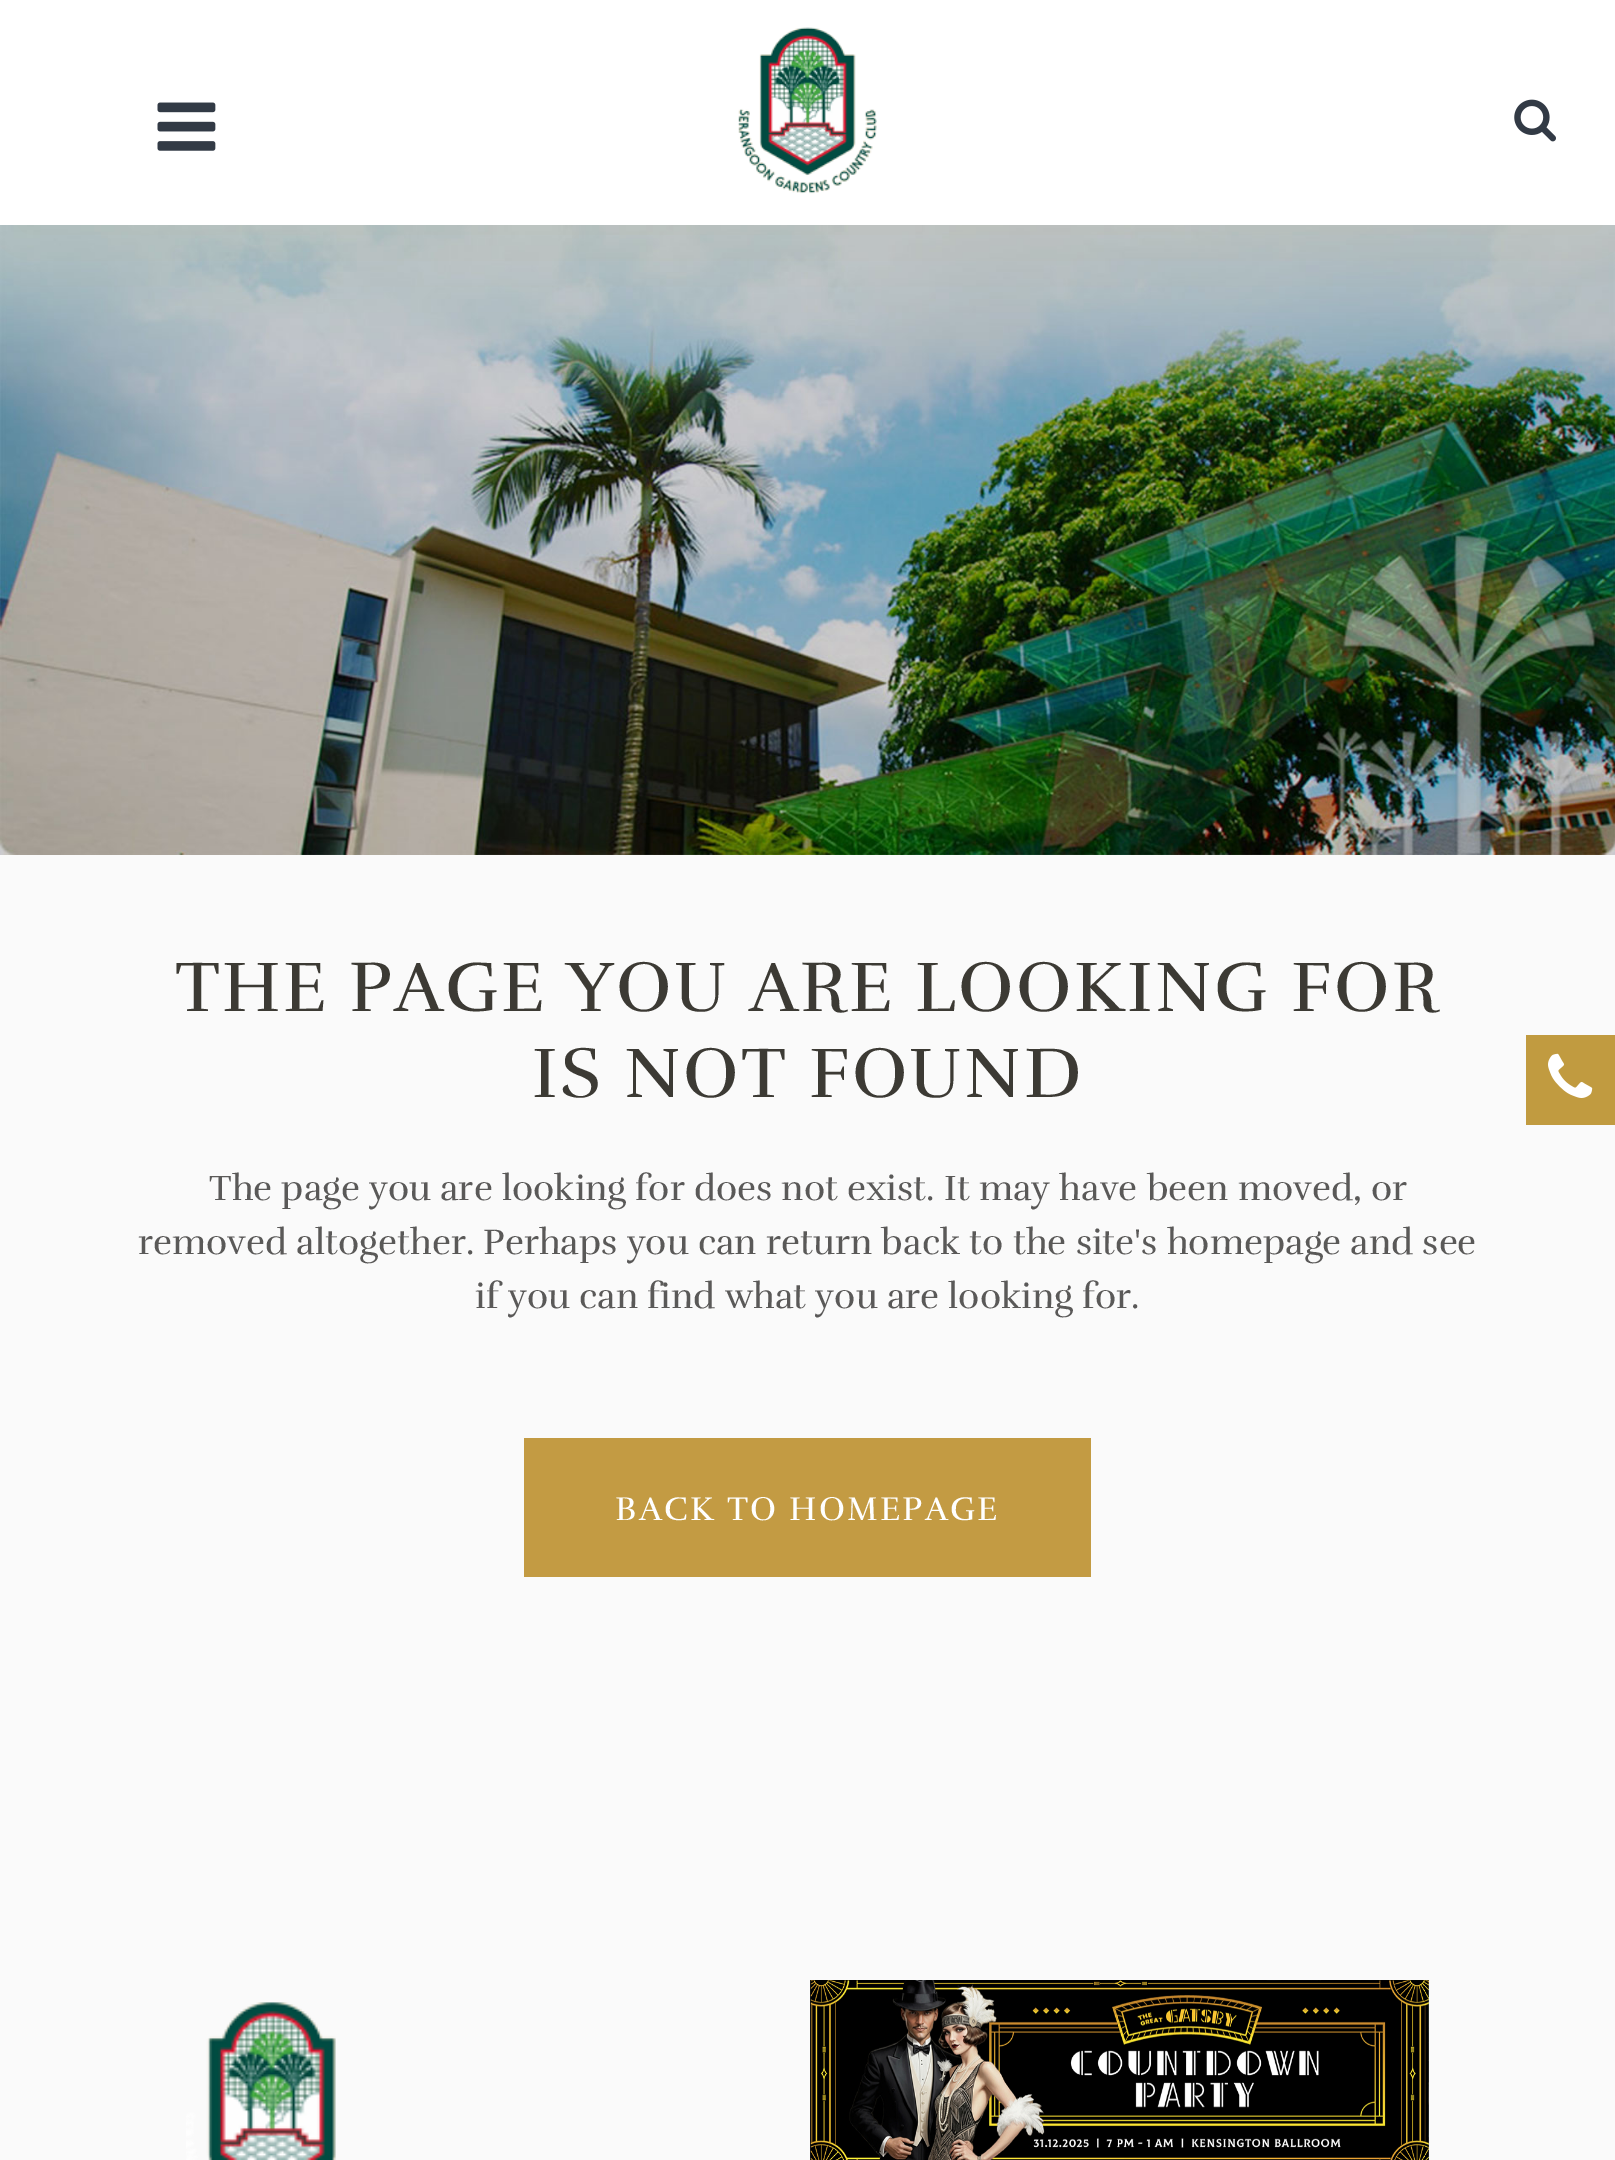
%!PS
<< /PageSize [1615 2160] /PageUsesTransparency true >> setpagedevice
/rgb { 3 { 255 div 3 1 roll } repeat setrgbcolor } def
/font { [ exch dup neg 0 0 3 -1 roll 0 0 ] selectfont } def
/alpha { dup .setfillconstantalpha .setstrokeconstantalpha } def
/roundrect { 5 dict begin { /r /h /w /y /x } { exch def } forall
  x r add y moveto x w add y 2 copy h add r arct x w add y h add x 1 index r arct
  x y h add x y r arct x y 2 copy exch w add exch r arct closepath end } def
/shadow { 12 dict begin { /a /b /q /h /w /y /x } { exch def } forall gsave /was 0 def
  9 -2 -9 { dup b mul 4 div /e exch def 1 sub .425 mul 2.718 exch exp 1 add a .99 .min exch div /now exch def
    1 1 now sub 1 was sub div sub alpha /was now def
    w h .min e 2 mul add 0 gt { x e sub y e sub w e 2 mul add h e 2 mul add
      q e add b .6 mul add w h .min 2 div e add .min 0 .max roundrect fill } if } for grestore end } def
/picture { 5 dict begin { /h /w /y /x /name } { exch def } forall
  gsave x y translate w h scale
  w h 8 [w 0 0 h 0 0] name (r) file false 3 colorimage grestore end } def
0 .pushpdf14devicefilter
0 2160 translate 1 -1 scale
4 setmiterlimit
250 250 250 rgb
0 0 1615 2160 rectfill
(img/4.rgb) 0 225 1615 630 picture
176 158 121 rgb
2 23 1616 225 0 52 0.16 shadow
255 255 255 rgb
0 0 1615 225 rectfill
(img/1.rgb) 157 102 59 49 picture
(img/2.rgb) 738 27 139 167 picture
(img/3.rgb) 1514 99 42 43 picture
195 155 67 rgb
524 1438 567 139 rectfill
(img/5.rgb) 186 2002 150 158 picture
(img/6.rgb) 810 1980 619 180 picture
193 155 64 rgb
1526 1035 89 90 rectfill
(img/7.rgb) 1548 1053 45 45 picture
/Rufina-Regular 72 font
60 58 52 rgb
175 1011 moveto 2.25 0 (THE PAGE YOU ARE LOOKING FOR) ashow
532 1097 moveto 2.25 0 (IS NOT FOUND) ashow
/Rufina-Regular 36 font
90 89 88 rgb
[
  [(The page you are looking for does not exist. It may have been moved, or) 209 1200]
  [(removed altogether. Perhaps you can return back to the site's homepage and see) 138 1254]
  [(if you can find what you are looking for.) 475 1308]
] { aload pop moveto show } forall
/Rufina-Regular 33.75 font
255 255 255 rgb
615 1520 moveto 2.25 0 (BACK TO HOMEPAGE) ashow
.poppdf14devicefilter showpage
